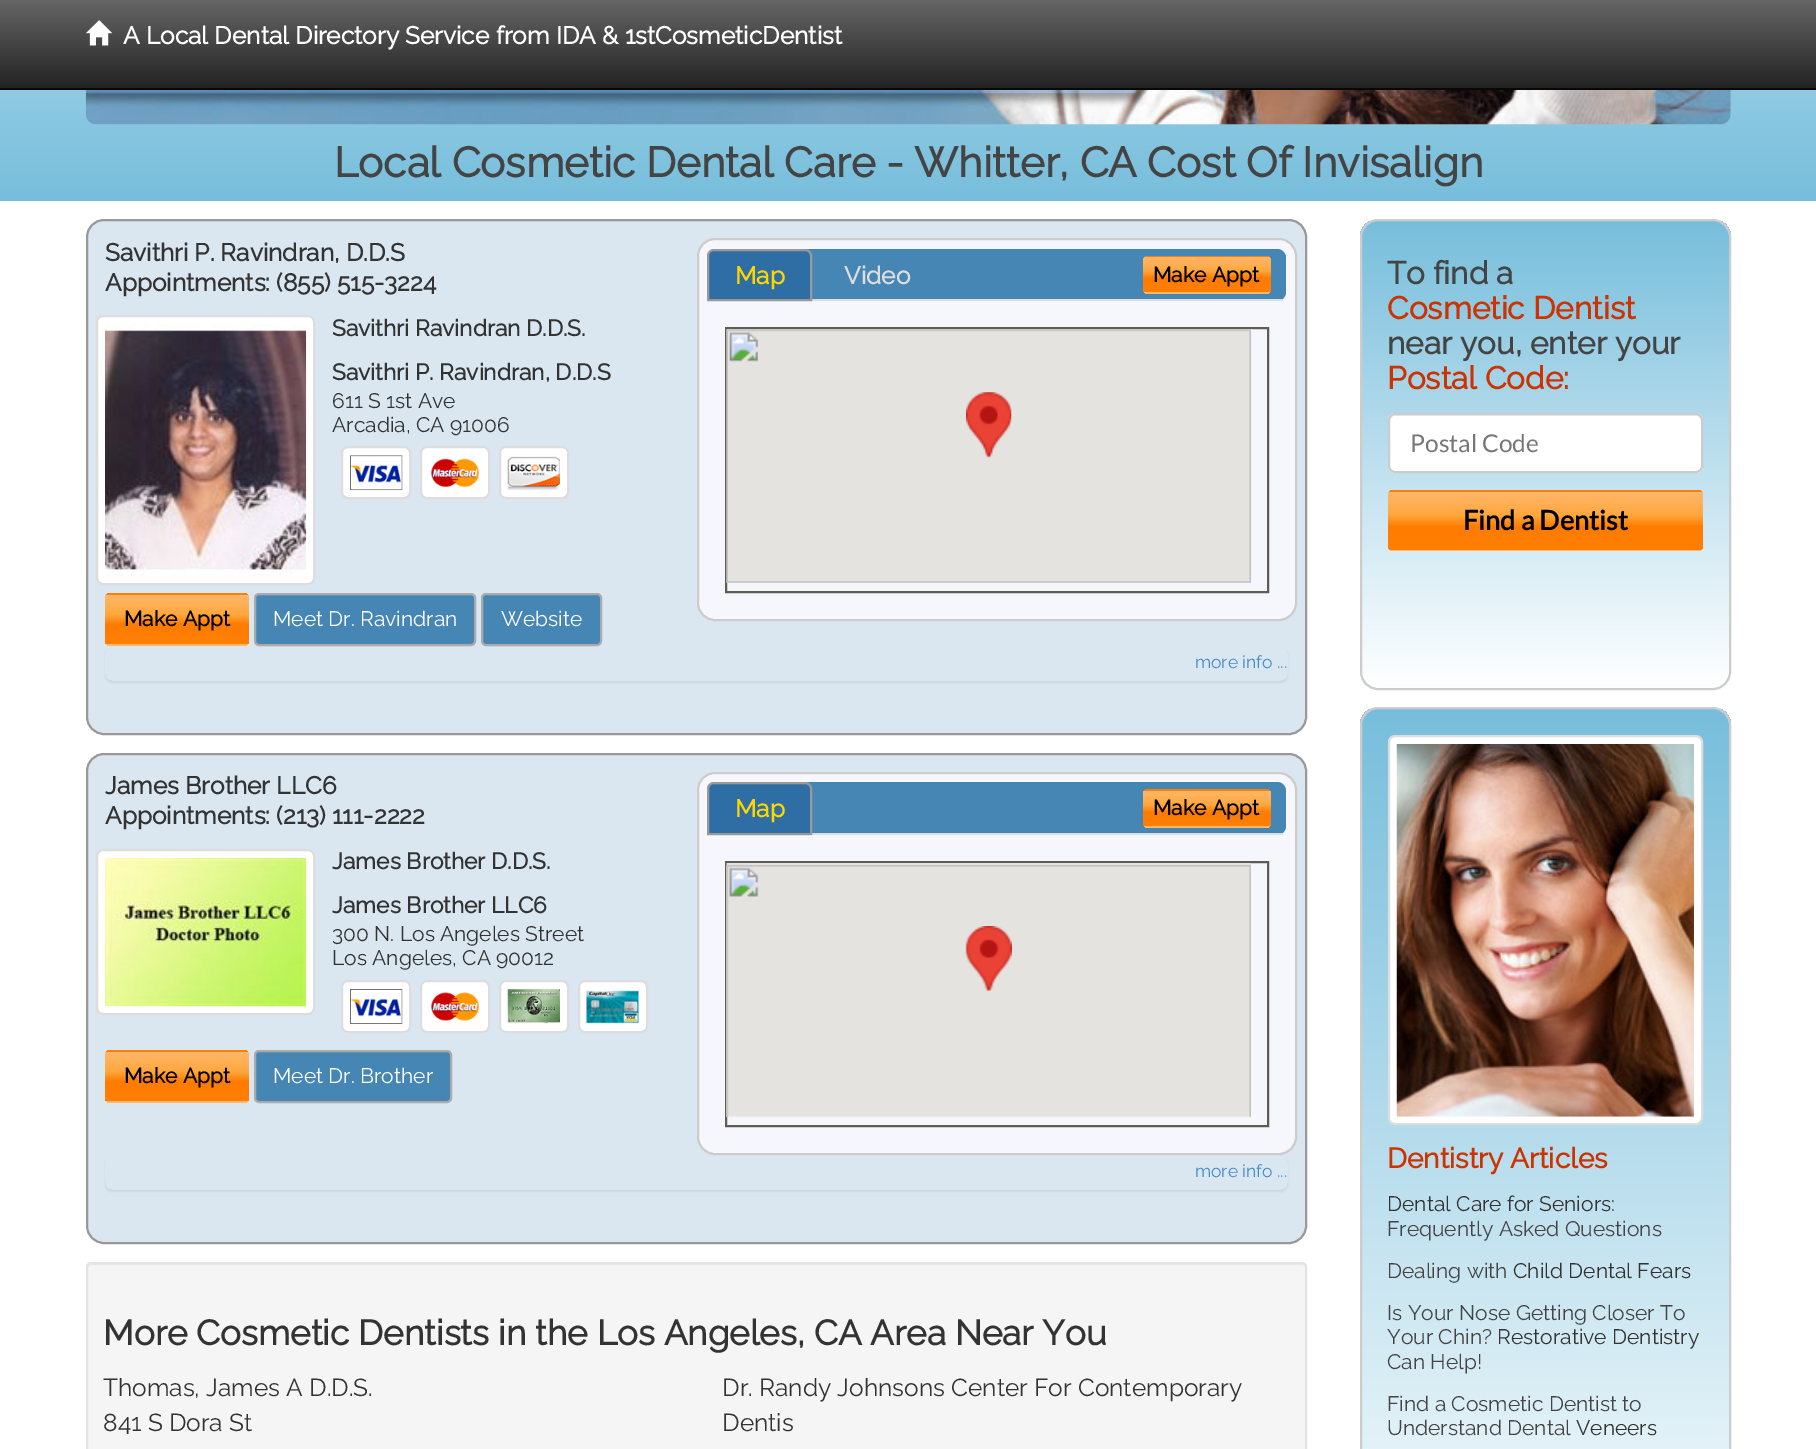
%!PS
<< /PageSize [1816 1449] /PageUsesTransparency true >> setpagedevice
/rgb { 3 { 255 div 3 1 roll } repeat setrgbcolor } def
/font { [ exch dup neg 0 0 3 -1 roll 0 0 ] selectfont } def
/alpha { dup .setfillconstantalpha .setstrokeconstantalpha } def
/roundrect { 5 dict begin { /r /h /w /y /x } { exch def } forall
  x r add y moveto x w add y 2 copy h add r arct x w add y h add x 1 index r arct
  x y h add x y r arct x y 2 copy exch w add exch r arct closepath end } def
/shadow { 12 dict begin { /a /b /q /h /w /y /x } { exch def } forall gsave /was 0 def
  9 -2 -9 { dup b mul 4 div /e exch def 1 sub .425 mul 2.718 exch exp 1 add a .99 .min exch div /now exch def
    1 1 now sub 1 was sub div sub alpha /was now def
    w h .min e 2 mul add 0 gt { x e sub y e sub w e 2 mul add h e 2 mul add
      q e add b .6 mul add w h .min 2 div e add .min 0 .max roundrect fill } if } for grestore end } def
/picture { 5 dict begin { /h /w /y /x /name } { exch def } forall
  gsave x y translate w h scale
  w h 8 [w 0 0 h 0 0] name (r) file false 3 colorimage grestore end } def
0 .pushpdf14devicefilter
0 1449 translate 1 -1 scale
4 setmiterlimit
255 255 255 rgb
0 0 1816 1449 rectfill
gsave 0 0 moveto 1816 0 lineto 1816 88 lineto 0 88 lineto closepath clip newpath
<< /ShadingType 2 /ColorSpace /DeviceRGB /Coords [908 0 908 88] /Extend [true true] /Function << /FunctionType 2 /Domain [0 1] /C0 [0.4 0.4 0.4] /C1 [0.133 0.133 0.133] /N 1 >> >> shfill grestore
8 8 8 rgb
0 88 1816 2 rectfill
(img/1.rgb) 86 20 27 26 picture
gsave 0 90 moveto 1816 90 lineto 1816 201 lineto 0 201 lineto closepath clip newpath
<< /ShadingType 2 /ColorSpace /DeviceRGB /Coords [908 -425 908 201] /Extend [true true] /Function << /FunctionType 2 /Domain [0 1] /C0 [1 1 1] /C1 [0.467 0.745 0.863] /N 1 >> >> shfill grestore
(img/2.rgb) 85 90 1646 35 picture
218 231 240 rgb
87 220 1219 514 17 roundrect gsave fill grestore
153 153 153 rgb
2 setlinewidth
stroke
255 255 255 rgb
97 316 217 268 6 roundrect gsave fill grestore
221 221 221 rgb
stroke
(img/3.rgb) 105 324 202 252 picture
255 255 255 rgb
342 447 68 51 6 roundrect gsave fill grestore
221 221 221 rgb
stroke
(img/4.rgb) 350 455 53 36 picture
255 255 255 rgb
421 447 68 51 6 roundrect gsave fill grestore
221 221 221 rgb
stroke
(img/5.rgb) 431 458 48 29 picture
255 255 255 rgb
500 447 68 51 6 roundrect gsave fill grestore
221 221 221 rgb
stroke
(img/6.rgb) 507 456 53 34 picture
gsave
105 593 144 53 5 roundrect clip newpath
gsave 105 593 moveto 249 593 lineto 249 595 lineto 105 595 lineto closepath clip newpath
<< /ShadingType 2 /ColorSpace /DeviceRGB /Coords [177 546 177 595] /Extend [true true] /Function << /FunctionType 3 /Domain [0 1] /Functions [<< /FunctionType 2 /Domain [0 1] /C0 [1 0.718 0.42] /C1 [1 0.655 0.239] /N 1 >> << /FunctionType 2 /Domain [0 1] /C0 [1 0.655 0.239] /C1 [1 0.486 0] /N 1 >> << /FunctionType 2 /Domain [0 1] /C0 [1 0.486 0] /C1 [1 0.498 0.016] /N 1 >>] /Bounds [0.4 0.6] /Encode [0 1 0 1 0 1] >> >> shfill grestore
gsave 105 595 moveto 249 595 lineto 249 644 lineto 105 644 lineto closepath clip newpath
<< /ShadingType 2 /ColorSpace /DeviceRGB /Coords [177 595 177 644] /Extend [true true] /Function << /FunctionType 3 /Domain [0 1] /Functions [<< /FunctionType 2 /Domain [0 1] /C0 [1 0.718 0.42] /C1 [1 0.655 0.239] /N 1 >> << /FunctionType 2 /Domain [0 1] /C0 [1 0.655 0.239] /C1 [1 0.486 0] /N 1 >> << /FunctionType 2 /Domain [0 1] /C0 [1 0.486 0] /C1 [1 0.498 0.016] /N 1 >>] /Bounds [0.4 0.6] /Encode [0 1 0 1 0 1] >> >> shfill grestore
gsave 105 644 moveto 249 644 lineto 249 646 lineto 105 646 lineto closepath clip newpath
<< /ShadingType 2 /ColorSpace /DeviceRGB /Coords [177 644 177 693] /Extend [true true] /Function << /FunctionType 3 /Domain [0 1] /Functions [<< /FunctionType 2 /Domain [0 1] /C0 [1 0.718 0.42] /C1 [1 0.655 0.239] /N 1 >> << /FunctionType 2 /Domain [0 1] /C0 [1 0.655 0.239] /C1 [1 0.486 0] /N 1 >> << /FunctionType 2 /Domain [0 1] /C0 [1 0.486 0] /C1 [1 0.498 0.016] /N 1 >>] /Bounds [0.4 0.6] /Encode [0 1 0 1 0 1] >> >> shfill grestore
grestore
69 134 181 rgb
255 594 220 51 4 roundrect gsave fill grestore
170 170 170 rgb
stroke
69 134 181 rgb
482 594 119 51 4 roundrect gsave fill grestore
170 170 170 rgb
stroke
246 246 253 rgb
698 239 598 381 17 roundrect gsave fill grestore
204 204 204 rgb
stroke
69 134 181 rgb
707 249 579 52 9 roundrect fill
221 221 221 rgb
812 299 471 2 rectfill
47 110 165 rgb
714 250 moveto 805 250 lineto 808.5 250 811 252.5 811 256 curveto 811 300 lineto 708 300 lineto 708 256 lineto 708 252.5 710.5 250 714 250 curveto closepath gsave fill grestore
153 153 153 rgb
stroke
95 92 82 rgb
726 328 542 264 rectstroke
(img/7.rgb) 726 329 526 254 picture
gsave
1143 256 128 38 5 roundrect clip newpath
gsave 1143 256 moveto 1271 256 lineto 1271 257 lineto 1143 257 lineto closepath clip newpath
<< /ShadingType 2 /ColorSpace /DeviceRGB /Coords [1207 222 1207 257] /Extend [true true] /Function << /FunctionType 3 /Domain [0 1] /Functions [<< /FunctionType 2 /Domain [0 1] /C0 [1 0.718 0.42] /C1 [1 0.655 0.239] /N 1 >> << /FunctionType 2 /Domain [0 1] /C0 [1 0.655 0.239] /C1 [1 0.486 0] /N 1 >> << /FunctionType 2 /Domain [0 1] /C0 [1 0.486 0] /C1 [1 0.498 0.016] /N 1 >>] /Bounds [0.4 0.6] /Encode [0 1 0 1 0 1] >> >> shfill grestore
gsave 1143 257 moveto 1271 257 lineto 1271 292 lineto 1143 292 lineto closepath clip newpath
<< /ShadingType 2 /ColorSpace /DeviceRGB /Coords [1207 257 1207 292] /Extend [true true] /Function << /FunctionType 3 /Domain [0 1] /Functions [<< /FunctionType 2 /Domain [0 1] /C0 [1 0.718 0.42] /C1 [1 0.655 0.239] /N 1 >> << /FunctionType 2 /Domain [0 1] /C0 [1 0.655 0.239] /C1 [1 0.486 0] /N 1 >> << /FunctionType 2 /Domain [0 1] /C0 [1 0.486 0] /C1 [1 0.498 0.016] /N 1 >>] /Bounds [0.4 0.6] /Encode [0 1 0 1 0 1] >> >> shfill grestore
gsave 1143 292 moveto 1271 292 lineto 1271 294 lineto 1143 294 lineto closepath clip newpath
<< /ShadingType 2 /ColorSpace /DeviceRGB /Coords [1207 292 1207 327] /Extend [true true] /Function << /FunctionType 3 /Domain [0 1] /Functions [<< /FunctionType 2 /Domain [0 1] /C0 [1 0.718 0.42] /C1 [1 0.655 0.239] /N 1 >> << /FunctionType 2 /Domain [0 1] /C0 [1 0.655 0.239] /C1 [1 0.486 0] /N 1 >> << /FunctionType 2 /Domain [0 1] /C0 [1 0.486 0] /C1 [1 0.498 0.016] /N 1 >>] /Bounds [0.4 0.6] /Encode [0 1 0 1 0 1] >> >> shfill grestore
grestore
gsave
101 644 moveto 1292 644 lineto 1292 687 lineto 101 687 lineto closepath 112 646 moveto 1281 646 lineto 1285 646 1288 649 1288 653 curveto 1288 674 lineto 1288 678 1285 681 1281 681 curveto 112 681 lineto 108 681 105 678 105 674 curveto 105 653 lineto 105 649 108 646 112 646 curveto closepath eoclip newpath
0 0 0 rgb
105 648 1183 35 7 1 0.05 shadow
grestore
218 231 240 rgb
87 754 1219 489 17 roundrect gsave fill grestore
153 153 153 rgb
stroke
255 255 255 rgb
97 850 217 164 6 roundrect gsave fill grestore
221 221 221 rgb
stroke
(img/8.rgb) 105 857 202 150 picture
255 255 255 rgb
342 981 68 51 6 roundrect gsave fill grestore
221 221 221 rgb
stroke
(img/9.rgb) 350 989 53 35 picture
255 255 255 rgb
421 981 68 51 6 roundrect gsave fill grestore
221 221 221 rgb
stroke
(img/10.rgb) 431 992 48 29 picture
255 255 255 rgb
500 981 68 51 6 roundrect gsave fill grestore
221 221 221 rgb
stroke
(img/11.rgb) 507 989 53 35 picture
255 255 255 rgb
579 981 68 51 6 roundrect gsave fill grestore
221 221 221 rgb
stroke
(img/12.rgb) 586 990 53 34 picture
gsave
105 1050 144 53 5 roundrect clip newpath
gsave 105 1050 moveto 249 1050 lineto 249 1052 lineto 105 1052 lineto closepath clip newpath
<< /ShadingType 2 /ColorSpace /DeviceRGB /Coords [177 1003 177 1052] /Extend [true true] /Function << /FunctionType 3 /Domain [0 1] /Functions [<< /FunctionType 2 /Domain [0 1] /C0 [1 0.718 0.42] /C1 [1 0.655 0.239] /N 1 >> << /FunctionType 2 /Domain [0 1] /C0 [1 0.655 0.239] /C1 [1 0.486 0] /N 1 >> << /FunctionType 2 /Domain [0 1] /C0 [1 0.486 0] /C1 [1 0.498 0.016] /N 1 >>] /Bounds [0.4 0.6] /Encode [0 1 0 1 0 1] >> >> shfill grestore
gsave 105 1052 moveto 249 1052 lineto 249 1101 lineto 105 1101 lineto closepath clip newpath
<< /ShadingType 2 /ColorSpace /DeviceRGB /Coords [177 1052 177 1101] /Extend [true true] /Function << /FunctionType 3 /Domain [0 1] /Functions [<< /FunctionType 2 /Domain [0 1] /C0 [1 0.718 0.42] /C1 [1 0.655 0.239] /N 1 >> << /FunctionType 2 /Domain [0 1] /C0 [1 0.655 0.239] /C1 [1 0.486 0] /N 1 >> << /FunctionType 2 /Domain [0 1] /C0 [1 0.486 0] /C1 [1 0.498 0.016] /N 1 >>] /Bounds [0.4 0.6] /Encode [0 1 0 1 0 1] >> >> shfill grestore
gsave 105 1101 moveto 249 1101 lineto 249 1103 lineto 105 1103 lineto closepath clip newpath
<< /ShadingType 2 /ColorSpace /DeviceRGB /Coords [177 1101 177 1150] /Extend [true true] /Function << /FunctionType 3 /Domain [0 1] /Functions [<< /FunctionType 2 /Domain [0 1] /C0 [1 0.718 0.42] /C1 [1 0.655 0.239] /N 1 >> << /FunctionType 2 /Domain [0 1] /C0 [1 0.655 0.239] /C1 [1 0.486 0] /N 1 >> << /FunctionType 2 /Domain [0 1] /C0 [1 0.486 0] /C1 [1 0.498 0.016] /N 1 >>] /Bounds [0.4 0.6] /Encode [0 1 0 1 0 1] >> >> shfill grestore
grestore
69 134 181 rgb
255 1051 196 51 4 roundrect gsave fill grestore
170 170 170 rgb
stroke
246 246 253 rgb
698 773 598 381 17 roundrect gsave fill grestore
204 204 204 rgb
stroke
69 134 181 rgb
707 782 579 53 9 roundrect fill
221 221 221 rgb
812 833 471 2 rectfill
47 110 165 rgb
714 783 moveto 805 783 lineto 808.5 783 811 785.5 811 789 curveto 811 834 lineto 708 834 lineto 708 789 lineto 708 785.5 710.5 783 714 783 curveto closepath gsave fill grestore
153 153 153 rgb
stroke
95 92 82 rgb
726 862 542 264 rectstroke
(img/13.rgb) 726 863 525 254 picture
gsave
1143 789 128 39 5 roundrect clip newpath
gsave 1143 789 moveto 1271 789 lineto 1271 791 lineto 1143 791 lineto closepath clip newpath
<< /ShadingType 2 /ColorSpace /DeviceRGB /Coords [1207 756 1207 791] /Extend [true true] /Function << /FunctionType 3 /Domain [0 1] /Functions [<< /FunctionType 2 /Domain [0 1] /C0 [1 0.718 0.42] /C1 [1 0.655 0.239] /N 1 >> << /FunctionType 2 /Domain [0 1] /C0 [1 0.655 0.239] /C1 [1 0.486 0] /N 1 >> << /FunctionType 2 /Domain [0 1] /C0 [1 0.486 0] /C1 [1 0.498 0.016] /N 1 >>] /Bounds [0.4 0.6] /Encode [0 1 0 1 0 1] >> >> shfill grestore
gsave 1143 791 moveto 1271 791 lineto 1271 826 lineto 1143 826 lineto closepath clip newpath
<< /ShadingType 2 /ColorSpace /DeviceRGB /Coords [1207 791 1207 826] /Extend [true true] /Function << /FunctionType 3 /Domain [0 1] /Functions [<< /FunctionType 2 /Domain [0 1] /C0 [1 0.718 0.42] /C1 [1 0.655 0.239] /N 1 >> << /FunctionType 2 /Domain [0 1] /C0 [1 0.655 0.239] /C1 [1 0.486 0] /N 1 >> << /FunctionType 2 /Domain [0 1] /C0 [1 0.486 0] /C1 [1 0.498 0.016] /N 1 >>] /Bounds [0.4 0.6] /Encode [0 1 0 1 0 1] >> >> shfill grestore
gsave 1143 826 moveto 1271 826 lineto 1271 828 lineto 1143 828 lineto closepath clip newpath
<< /ShadingType 2 /ColorSpace /DeviceRGB /Coords [1207 826 1207 861] /Extend [true true] /Function << /FunctionType 3 /Domain [0 1] /Functions [<< /FunctionType 2 /Domain [0 1] /C0 [1 0.718 0.42] /C1 [1 0.655 0.239] /N 1 >> << /FunctionType 2 /Domain [0 1] /C0 [1 0.655 0.239] /C1 [1 0.486 0] /N 1 >> << /FunctionType 2 /Domain [0 1] /C0 [1 0.486 0] /C1 [1 0.498 0.016] /N 1 >>] /Bounds [0.4 0.6] /Encode [0 1 0 1 0 1] >> >> shfill grestore
grestore
gsave
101 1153 moveto 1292 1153 lineto 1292 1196 lineto 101 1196 lineto closepath 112 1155 moveto 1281 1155 lineto 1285 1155 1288 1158 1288 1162 curveto 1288 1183 lineto 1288 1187 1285 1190 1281 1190 curveto 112 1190 lineto 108 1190 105 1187 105 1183 curveto 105 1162 lineto 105 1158 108 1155 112 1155 curveto closepath eoclip newpath
0 0 0 rgb
105 1157 1183 35 7 1 0.05 shadow
grestore
245 245 245 rgb
86 1262 1221 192 5 roundrect fill
233 233 233 rgb
91 1265 moveto 1302 1265 lineto 1304 1265 1306 1267 1306 1269 curveto 1306 1266 1305 1264 1302 1264 curveto 92 1264 lineto 89 1264 88 1266 88 1269 curveto 88 1267 89 1265 91 1265 curveto closepath fill
227 227 227 rgb
87 1263 1219 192 4 roundrect stroke
gsave
1360 219 371 471 18 roundrect clip newpath
gsave 1360 221 moveto 1731 221 lineto 1731 688 lineto 1360 688 lineto closepath clip newpath
<< /ShadingType 2 /ColorSpace /DeviceRGB /Coords [1545 221 1545 688] /Extend [true true] /Function << /FunctionType 2 /Domain [0 1] /C0 [0.467 0.745 0.863] /C1 [1 1 1] /N 1 >> >> shfill grestore
grestore
204 204 204 rgb
1361 220 369 469 17 roundrect stroke
255 255 255 rgb
1388 413 315 60 7 roundrect fill
236 236 236 rgb
1395 416 moveto 1696 416 lineto 1699 416 1701 419 1701 422 curveto 1701 420 lineto 1701 417 1699 415 1696 415 curveto 1395 415 lineto 1392 415 1390 417 1390 420 curveto 1390 422 lineto 1390 419 1392 416 1395 416 curveto closepath fill
204 204 204 rgb
1389 414 313 58 6 roundrect stroke
gsave
1388 490 315 61 5 roundrect clip newpath
gsave 1388 490 moveto 1703 490 lineto 1703 492 lineto 1388 492 lineto closepath clip newpath
<< /ShadingType 2 /ColorSpace /DeviceRGB /Coords [1545 434 1545 492] /Extend [true true] /Function << /FunctionType 3 /Domain [0 1] /Functions [<< /FunctionType 2 /Domain [0 1] /C0 [1 0.718 0.42] /C1 [1 0.655 0.239] /N 1 >> << /FunctionType 2 /Domain [0 1] /C0 [1 0.655 0.239] /C1 [1 0.486 0] /N 1 >> << /FunctionType 2 /Domain [0 1] /C0 [1 0.486 0] /C1 [1 0.498 0.016] /N 1 >>] /Bounds [0.4 0.6] /Encode [0 1 0 1 0 1] >> >> shfill grestore
gsave 1388 492 moveto 1703 492 lineto 1703 550 lineto 1388 550 lineto closepath clip newpath
<< /ShadingType 2 /ColorSpace /DeviceRGB /Coords [1545 492 1545 550] /Extend [true true] /Function << /FunctionType 3 /Domain [0 1] /Functions [<< /FunctionType 2 /Domain [0 1] /C0 [1 0.718 0.42] /C1 [1 0.655 0.239] /N 1 >> << /FunctionType 2 /Domain [0 1] /C0 [1 0.655 0.239] /C1 [1 0.486 0] /N 1 >> << /FunctionType 2 /Domain [0 1] /C0 [1 0.486 0] /C1 [1 0.498 0.016] /N 1 >>] /Bounds [0.4 0.6] /Encode [0 1 0 1 0 1] >> >> shfill grestore
gsave 1388 550 moveto 1703 550 lineto 1703 551 lineto 1388 551 lineto closepath clip newpath
<< /ShadingType 2 /ColorSpace /DeviceRGB /Coords [1545 550 1545 607] /Extend [true true] /Function << /FunctionType 3 /Domain [0 1] /Functions [<< /FunctionType 2 /Domain [0 1] /C0 [1 0.718 0.42] /C1 [1 0.655 0.239] /N 1 >> << /FunctionType 2 /Domain [0 1] /C0 [1 0.655 0.239] /C1 [1 0.486 0] /N 1 >> << /FunctionType 2 /Domain [0 1] /C0 [1 0.486 0] /C1 [1 0.498 0.016] /N 1 >>] /Bounds [0.4 0.6] /Encode [0 1 0 1 0 1] >> >> shfill grestore
grestore
gsave
1360 707 371 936 18 roundrect clip newpath
gsave 1360 709 moveto 1731 709 lineto 1731 1449 lineto 1360 1449 lineto closepath clip newpath
<< /ShadingType 2 /ColorSpace /DeviceRGB /Coords [1545 709 1545 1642] /Extend [true true] /Function << /FunctionType 2 /Domain [0 1] /C0 [0.467 0.745 0.863] /C1 [1 1 1] /N 1 >> >> shfill grestore
grestore
1361 708 369 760 17 roundrect stroke
255 255 255 rgb
1389 736 313 388 6 roundrect gsave fill grestore
221 221 221 rgb
stroke
(img/14.rgb) 1396 744 298 373 picture
/Raleway-Bold 24.5 font
255 255 255 rgb
123 44 moveto (A Local Dental Directory Service from IDA & 1stCosmeticDentist) show
/Raleway-Bold 42 font
68 68 68 rgb
334 177 moveto (Local Cosmetic Dental Care - Whitter, CA Cost Of Invisalign) show
/Raleway-Bold 24.5 font
51 51 51 rgb
105 261 moveto (Savithri P. Ravindran, D.D.S) show
105 291 moveto (Appointments: \(855\) 515-3224) show
/Raleway-Bold 22.75 font
332 336 moveto (Savithri Ravindran D.D.S.) show
332 380 moveto (Savithri P. Ravindran, D.D.S) show
/Raleway-Thin 21 font
332 408 moveto (611 S 1st Ave) show
332 432 moveto (Arcadia, CA 91006) show
/Raleway-Bold 21 font
0 0 0 rgb
124 626 moveto (Make Appt) show
/Raleway-Thin 21 font
255 255 255 rgb
273 626 moveto (Meet Dr. Ravindran) show
501 626 moveto (Website) show
/Raleway-Bold 24.5 font
255 215 0 rgb
735 284 moveto (Map) show
221 221 221 rgb
844 284 moveto (Video) show
/Raleway-Bold 21 font
0 0 0 rgb
1153 282 moveto (Make Appt) show
/Raleway-Thin 17.5 font
66 139 202 rgb
1195 668 moveto (more info ...) show
/Raleway-Bold 24.5 font
51 51 51 rgb
105 794 moveto (James Brother LLC6) show
105 824 moveto (Appointments: \(213\) 111-2222) show
/Raleway-Bold 22.75 font
332 869 moveto (James Brother D.D.S.) show
332 913 moveto (James Brother LLC6) show
/Raleway-Thin 21 font
332 941 moveto (300 N. Los Angeles Street) show
332 965 moveto (Los Angeles, CA 90012) show
/Raleway-Bold 21 font
0 0 0 rgb
124 1083 moveto (Make Appt) show
/Raleway-Thin 21 font
255 255 255 rgb
273 1083 moveto (Meet Dr. Brother) show
/Raleway-Bold 24.5 font
255 215 0 rgb
735 817 moveto (Map) show
/Raleway-Bold 21 font
0 0 0 rgb
1153 815 moveto (Make Appt) show
/Raleway-Thin 17.5 font
66 139 202 rgb
1195 1177 moveto (more info ...) show
/Raleway-Bold 35 font
51 51 51 rgb
103 1345 moveto (More Cosmetic Dentists in the Los Angeles, CA Area Near You) show
/Raleway-Thin 24.5 font
[
  [(Thomas, James A D.D.S.) 103 1396]
  [(841 S Dora St) 103 1431]
  [(Dr. Randy Johnsons Center For Contemporary) 722 1396]
  [(Dentis) 722 1431]
] { aload pop moveto show } forall
/Raleway-Bold 31.5 font
68 68 68 rgb
1387 284 moveto (To find a) show
204 51 0 rgb
1387 319 moveto (Cosmetic Dentist) show
68 68 68 rgb
1387 354 moveto (near you, enter your) show
204 51 0 rgb
1387 389 moveto (Postal Code:) show
/Lato-Regular 24.5 font
119 119 119 rgb
1410 452 moveto (Postal Code) show
/Lato-Bold 27 font
0 0 0 rgb
1463 530 moveto (Find a Dentist) show
/Raleway-Bold 28 font
204 51 0 rgb
1387 1168 moveto (Dentistry Articles) show
/Raleway-Thin 21 font
51 51 51 rgb
1387 1211 moveto (Dental Care for Seniors) show
68 68 68 rgb
[
  [(:) 1611 1211]
  [(Frequently Asked Questions) 1387 1236]
  [(Dealing with) 1387 1278]
] { aload pop moveto show } forall
51 51 51 rgb
1513 1278 moveto (Child Dental Fears) show
68 68 68 rgb
1387 1320 moveto (Is Your Nose Getting Closer To) show
1387 1344 moveto (Your Chin?) show
51 51 51 rgb
1497 1344 moveto (Restorative Dentistry) show
68 68 68 rgb
[
  [(Can Help!) 1387 1369]
  [(Find a Cosmetic Dentist to) 1387 1411]
  [(Understand Dental) 1387 1435]
] { aload pop moveto show } forall
51 51 51 rgb
1576 1435 moveto (Veneers) show
.poppdf14devicefilter showpage
